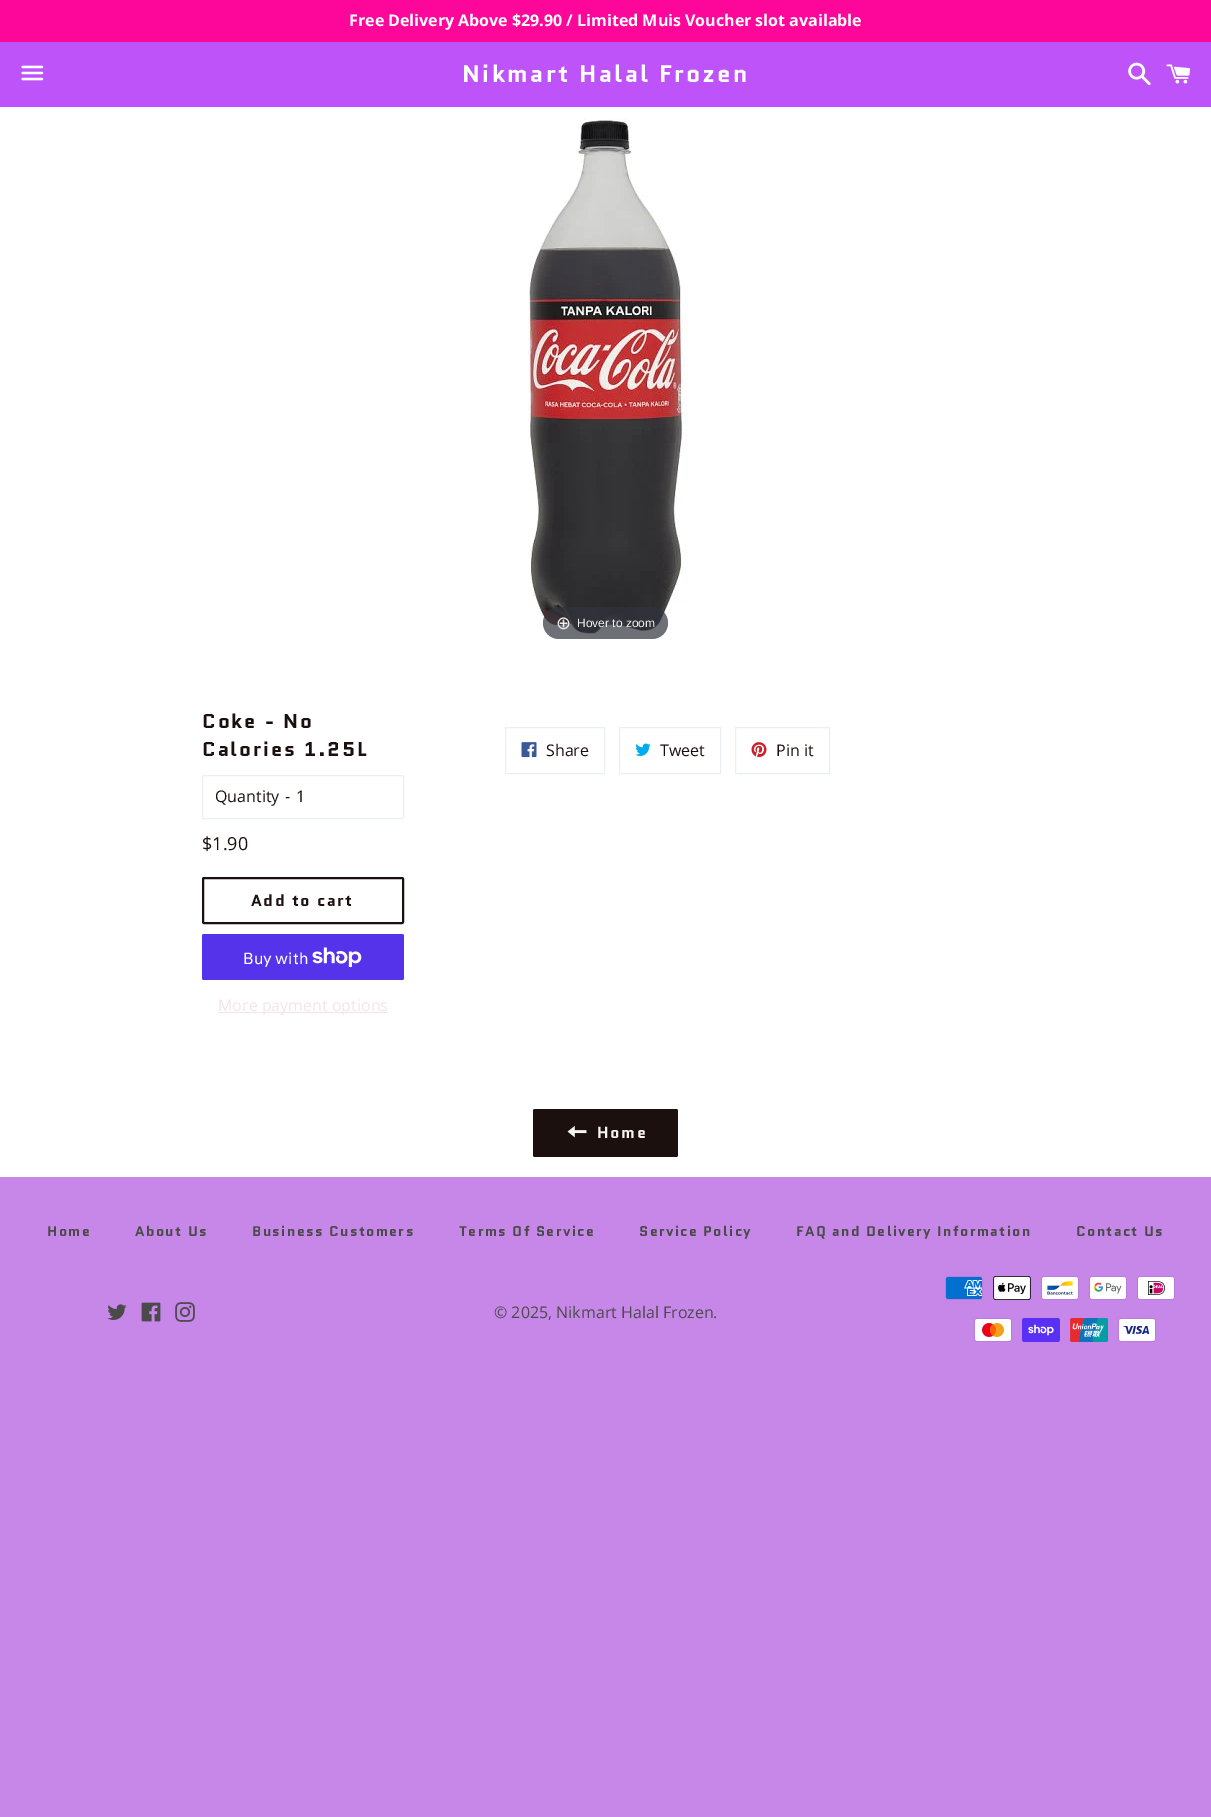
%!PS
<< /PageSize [1211 1817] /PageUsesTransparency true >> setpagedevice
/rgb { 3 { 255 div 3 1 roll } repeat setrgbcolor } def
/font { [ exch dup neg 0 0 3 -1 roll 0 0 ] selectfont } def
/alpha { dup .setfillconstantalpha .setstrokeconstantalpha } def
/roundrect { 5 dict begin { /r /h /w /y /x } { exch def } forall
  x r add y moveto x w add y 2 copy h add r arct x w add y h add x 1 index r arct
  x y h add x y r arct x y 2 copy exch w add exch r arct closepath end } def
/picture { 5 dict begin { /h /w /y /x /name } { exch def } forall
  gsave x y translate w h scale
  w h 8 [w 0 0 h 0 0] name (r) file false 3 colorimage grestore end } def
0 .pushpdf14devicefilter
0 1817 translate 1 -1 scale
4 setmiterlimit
198 135 233 rgb
0 0 1211 1817 rectfill
[
  [0 107 1211 1070 255 255 255]
  [0 0 1211 42 253 6 154]
  [0 42 1211 65 190 83 250]
] { aload pop rgb rectfill } forall
(img/1.rgb) 21 65 23 16 picture
(img/2.rgb) 1128 62 23 24 picture
(img/3.rgb) 1166 64 25 20 picture
(img/4.rgb) 528 119 160 516 picture
0.7 alpha
49 51 61 rgb
543 607 125 32 16 roundrect fill
1 alpha
236 239 241 rgb
202.5 775.5 201 43 1.5 roundrect stroke
27 16 14 rgb
2 setlinewidth
203 878 200 45 1 roundrect stroke
84 51 235 rgb
202 934 202 46 2 roundrect fill
(img/5.rgb) 312 947 50 20 picture
242 227 236 rgb
218 1012 170 1 rectfill
236 239 241 rgb
1 setlinewidth
505.5 727.5 99 46 rectstroke
(img/6.rgb) 521 742 16 16 picture
619.5 727.5 101 46 rectstroke
(img/7.rgb) 635 743 16 13 picture
735.5 727.5 94 46 rectstroke
(img/8.rgb) 751 742 16 16 picture
27 16 14 rgb
533 1109 145 48 2 roundrect fill
(img/9.rgb) 567 1125 20 13 picture
(img/10.rgb) 107 1304 20 16 picture
(img/11.rgb) 141 1302 20 20 picture
(img/12.rgb) 175 1302 20 20 picture
(img/13.rgb) 945 1276 38 24 picture
(img/14.rgb) 993 1276 38 24 picture
(img/15.rgb) 1041 1276 38 24 picture
(img/16.rgb) 1089 1276 38 24 picture
(img/17.rgb) 1137 1276 38 24 picture
(img/18.rgb) 974 1318 38 24 picture
(img/19.rgb) 1022 1318 38 24 picture
(img/20.rgb) 1070 1318 38 24 picture
(img/21.rgb) 1118 1318 38 24 picture
/OpenSans-Bold 16 font
255 255 255 rgb
349 26 moveto (Free Delivery Above $29.90 / Limited Muis Voucher slot available) show
/Quantico-Bold 24 font
462 82 moveto 2.4 0 (Nikmart Halal Frozen) ashow
/DejaVuSans-Regular 18 font
238 238 238 rgb
556 629 moveto (⊕) show
/LiberationSans-Regular 12 font
577 627 moveto (Hover to zoom) show
/Quantico-Bold 20 font
27 16 14 rgb
202 728 moveto 2 0 (Coke - No) ashow
202 756 moveto 2 0 (Calories 1.25L) ashow
/OpenSans-Regular 16 font
[
  [(Quantity) 215 802]
  [(-) 285 802]
  [(1) 296 802]
] { aload pop moveto show } forall
/OpenSans-Regular 18 font
202 850 moveto ($1.90) show
/Quantico-Bold 16 font
251 906 moveto 1.6 0 (Add to cart) ashow
/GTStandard-Regular 16 font
255 255 255 rgb
243 964 moveto (Buy with) show
/OpenSans-Regular 16 font
242 227 236 rgb
218 1011 moveto (More payment options) show
27 16 14 rgb
[
  [(Share) 546 756]
  [(Tweet) 660 756]
  [(Pin it) 776 756]
] { aload pop moveto show } forall
/Quantico-Bold 16 font
247 244 244 rgb
597 1138 moveto 1.6 0 (Home) ashow
/Quantico-Bold 14 font
74 74 74 rgb
47 1236 moveto 1.4 0 (Home) ashow
135 1236 moveto 1.4 0 (About Us) ashow
252 1236 moveto 1.4 0 (Business Customers) ashow
459 1236 moveto 1.4 0 (Terms Of Service) ashow
639 1236 moveto 1.4 0 (Service Policy) ashow
796 1236 moveto 1.4 0 (FAQ and Delivery Information) ashow
1076 1236 moveto 1.4 0 (Contact Us) ashow
/OpenSans-Regular 16 font
494 1318 moveto (© 2025, Nikmart Halal Frozen.) show
.poppdf14devicefilter showpage
